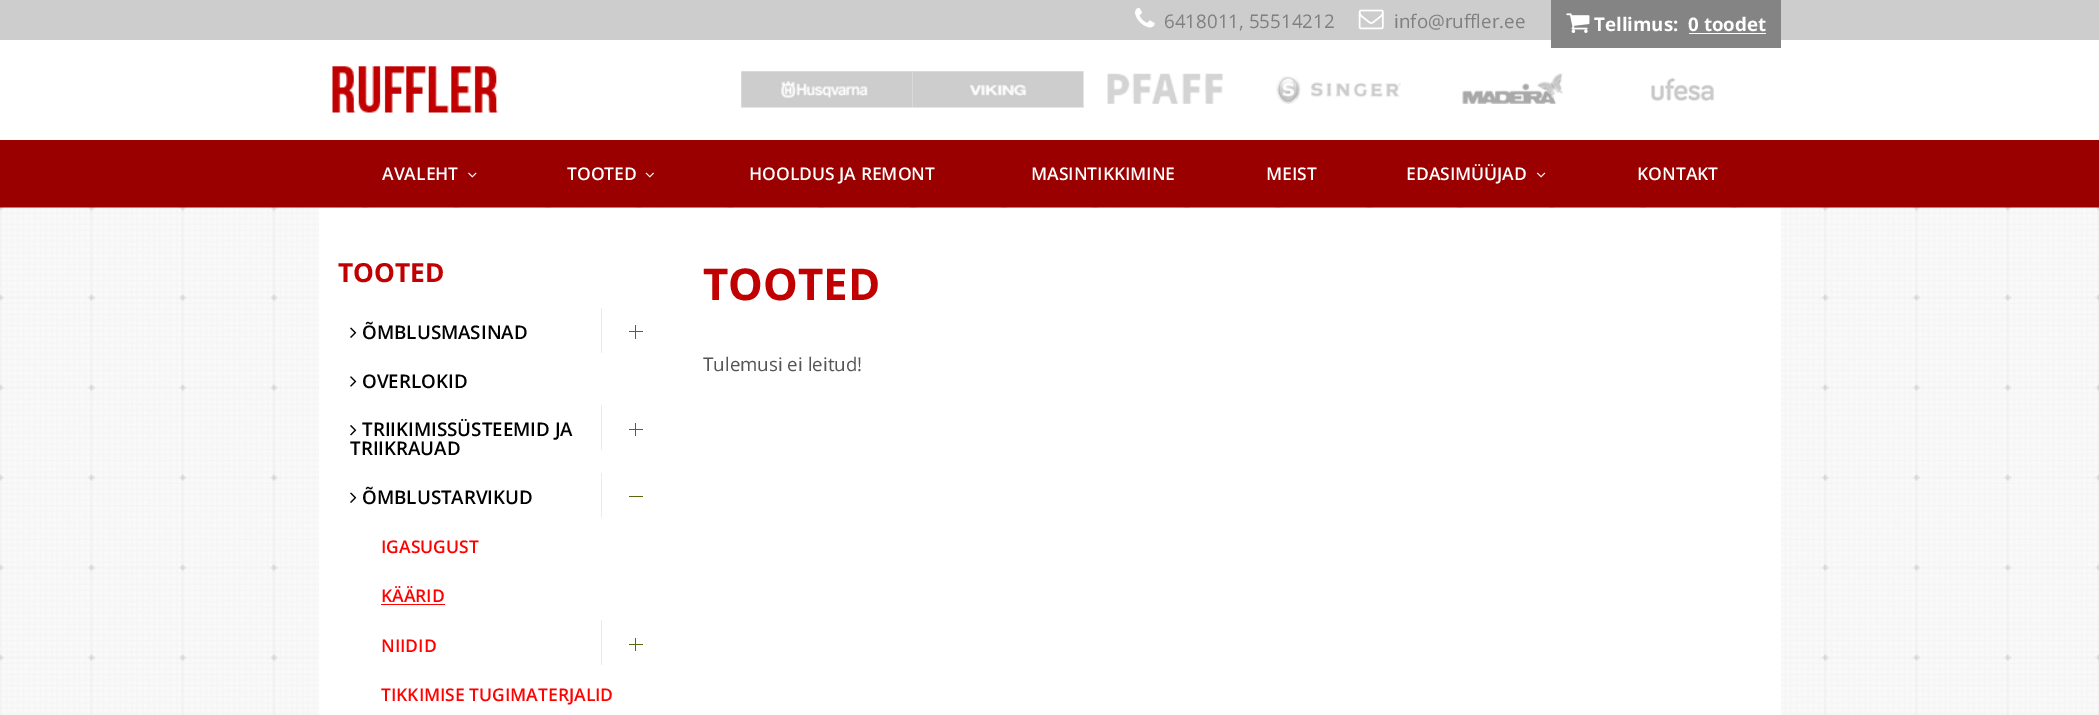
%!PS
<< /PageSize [2099 715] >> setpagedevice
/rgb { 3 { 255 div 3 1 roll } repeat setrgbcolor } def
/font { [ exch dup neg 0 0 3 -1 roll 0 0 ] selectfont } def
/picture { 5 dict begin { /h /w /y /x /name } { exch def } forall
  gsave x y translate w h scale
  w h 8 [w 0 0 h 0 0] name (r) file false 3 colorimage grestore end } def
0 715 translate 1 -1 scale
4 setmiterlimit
255 255 255 rgb
0 0 2099 715 rectfill
205 205 205 rgb
0 0 2099 40 rectfill
(img/1.rgb) 1135 8 20 20 picture
(img/2.rgb) 1358 9 26 21 picture
132 132 132 rgb
1551 0 230 48 rectfill
(img/3.rgb) 1566 13 24 20 picture
255 255 255 rgb
1689 33 77 1 rectfill
(img/4.rgb) 332 66 166 47 picture
(img/5.rgb) 741 71 172 37 picture
(img/6.rgb) 912 71 172 37 picture
(img/7.rgb) 1083 71 140 36 picture
(img/8.rgb) 1276 76 125 28 picture
(img/9.rgb) 1462 73 101 31 picture
(img/10.rgb) 1651 77 63 25 picture
154 0 0 rgb
0 140 2099 68 rectfill
(img/11.rgb) 468 172 9 6 picture
(img/12.rgb) 645 172 9 6 picture
(img/13.rgb) 1536 172 10 6 picture
(img/14.rgb) 0 207 2099 508 picture
255 255 255 rgb
319 208 1462 507 rectfill
(img/15.rgb) 350 327 7 11 picture
[
  [601 308 1 45 235 235 235]
  [629 331 14 1 85 105 13]
  [635 325 1 14 85 105 13]
] { aload pop rgb rectfill } forall
(img/16.rgb) 350 376 7 11 picture
(img/17.rgb) 350 425 7 11 picture
[
  [601 405 1 45 235 235 235]
  [629 429 14 1 85 105 13]
  [635 423 1 13 85 105 13]
] { aload pop rgb rectfill } forall
(img/15.rgb) 350 492 7 11 picture
[
  [601 473 1 45 235 235 235]
  [629 496 14 1 85 105 13]
  [381 604 64 1 255 1 0]
  [601 620 1 45 235 235 235]
  [629 644 14 1 85 105 13]
  [635 638 1 13 85 105 13]
] { aload pop rgb rectfill } forall
/OpenSans-Regular 18.75 font
128 128 128 rgb
1164 28 moveto (6418011, 55514212) show
1394 28 moveto (info@ruffler.ee) show
/OpenSans-Bold 18.75 font
255 255 255 rgb
1594 31 moveto (Tellimus:) show
1688 31 moveto (0 toodet) show
/OpenSans-SemiBold 17.5 font
[
  [(AVALEHT) 382 180]
  [(TOOTED) 567 180]
  [(HOOLDUS JA REMONT) 749 180]
  [(MASINTIKKIMINE) 1031 180]
  [(MEIST) 1266 180]
  [(EDASIMÜÜJAD) 1406 180]
  [(KONTAKT) 1637 180]
] { aload pop moveto show } forall
/OpenSans-Bold 26.25 font
193 0 1 rgb
338 282 moveto (TOOTED) show
/OpenSans-SemiBold 18.75 font
0 0 0 rgb
[
  [(ÕMBLUSMASINAD) 362 339]
  [(OVERLOKID) 362 388]
  [(TRIIKIMISSÜSTEEMID JA) 362 436]
  [(TRIIKRAUAD) 350 455]
  [(ÕMBLUSTARVIKUD) 362 504]
] { aload pop moveto show } forall
/OpenSans-SemiBold 17.5 font
255 1 0 rgb
[
  [(IGASUGUST) 381 553]
  [(KÄÄRID) 381 602]
  [(NIIDID) 381 652]
  [(TIKKIMISE TUGIMATERJALID) 381 701]
] { aload pop moveto show } forall
/OpenSans-Bold 43.75 font
193 0 1 rgb
703 300 moveto (TOOTED) show
/OpenSans-Regular 18.75 font
85 85 85 rgb
703 371 moveto (Tulemusi ei leitud!) show
showpage
